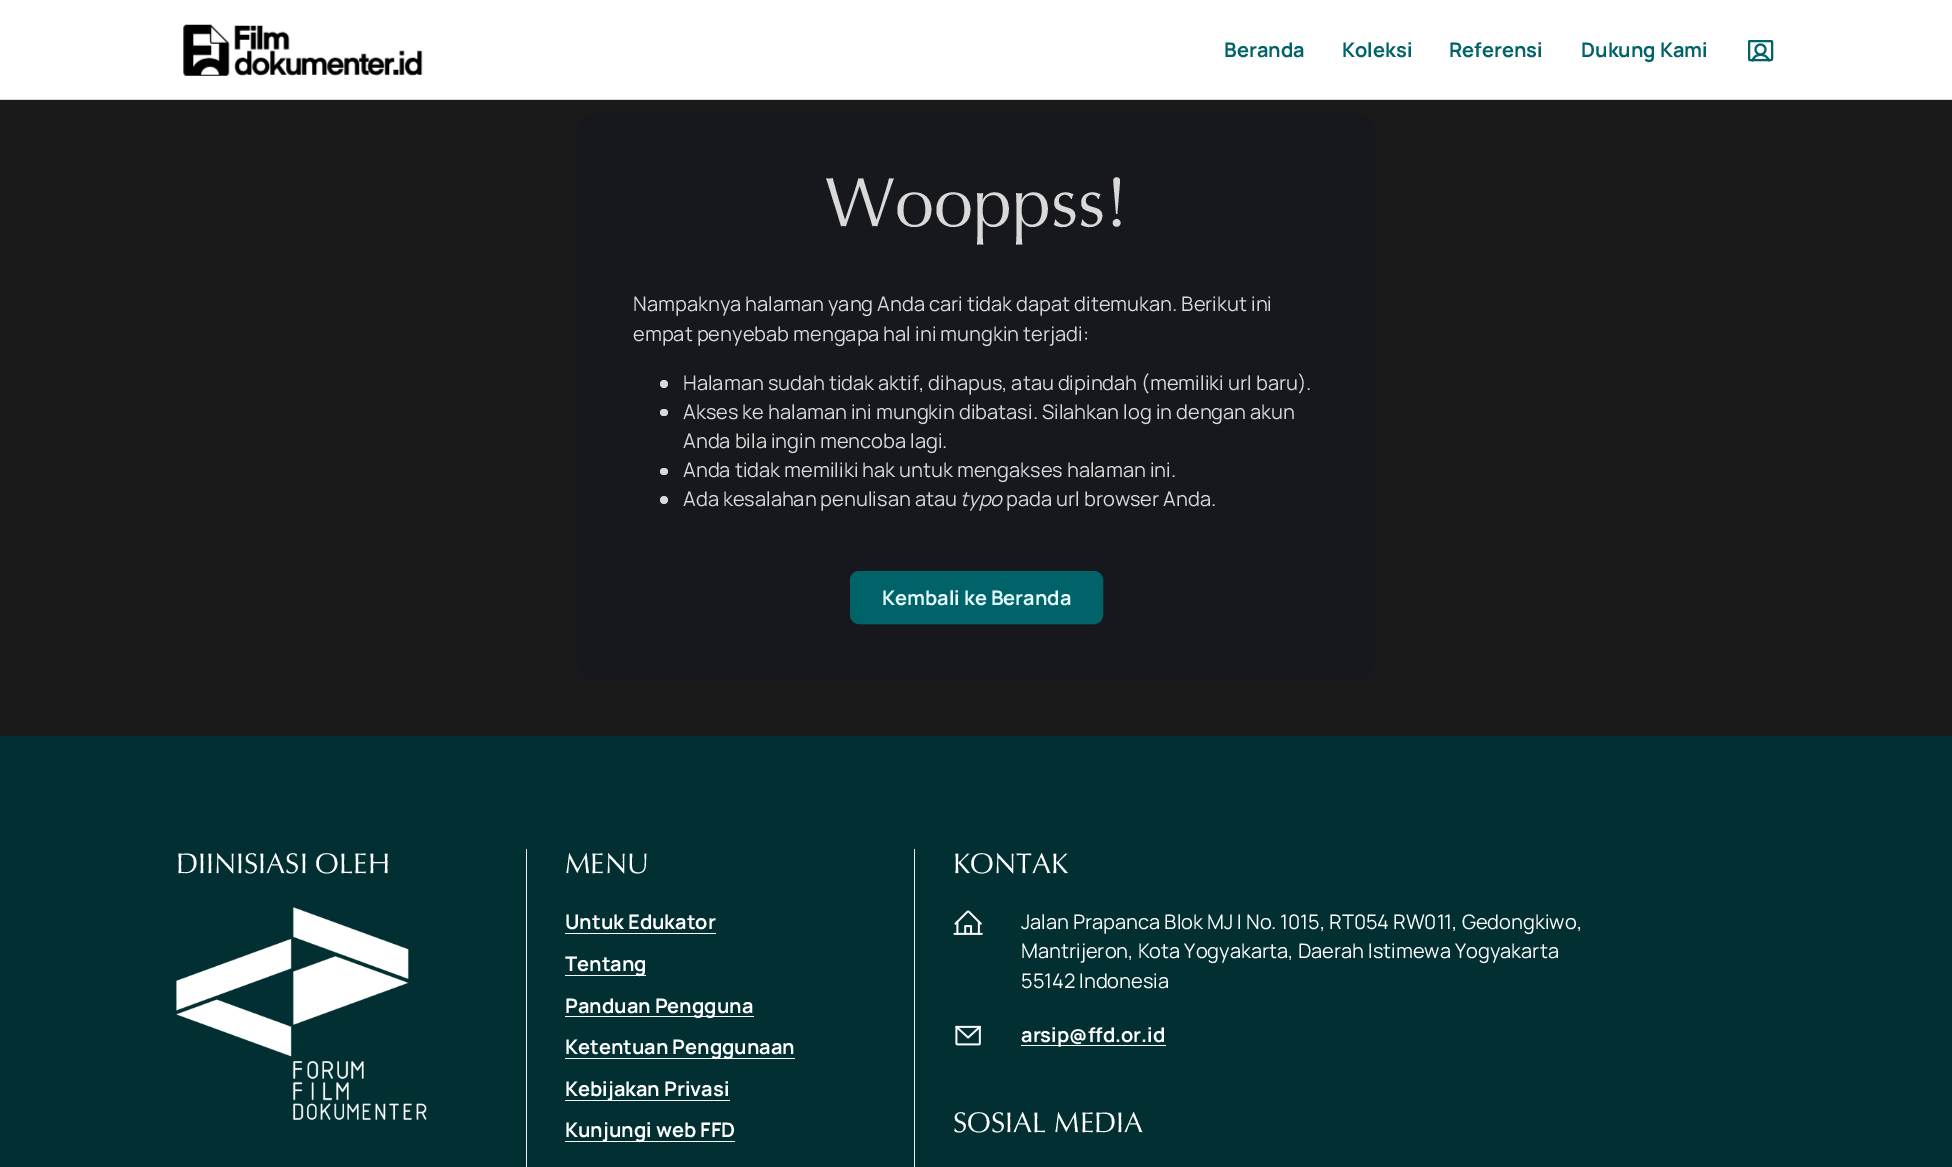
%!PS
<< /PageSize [1952 1167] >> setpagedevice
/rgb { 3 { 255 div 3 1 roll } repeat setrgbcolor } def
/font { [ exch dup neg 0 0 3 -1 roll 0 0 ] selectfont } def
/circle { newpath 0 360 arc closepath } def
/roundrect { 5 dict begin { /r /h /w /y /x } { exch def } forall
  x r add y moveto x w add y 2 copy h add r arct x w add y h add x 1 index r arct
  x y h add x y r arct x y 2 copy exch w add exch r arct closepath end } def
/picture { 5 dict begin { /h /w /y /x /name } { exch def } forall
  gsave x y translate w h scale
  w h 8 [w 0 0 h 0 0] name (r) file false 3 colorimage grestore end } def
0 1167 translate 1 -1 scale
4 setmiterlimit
26 26 26 rgb
0 0 1952 1167 rectfill
255 255 255 rgb
0 0 1952 99 rectfill
217 217 217 rgb
0 99 1952 1 rectfill
(img/1.rgb) 183 24 240 52 picture
1 99 106 rgb
2 setlinewidth
1760.5 49.5 5 circle stroke
1749 41 23 19 1 roundrect stroke
1 setlinecap
1 setlinejoin
1752.5 60.5 moveto 1755 52.5 1766 52.5 1769 60.5 curveto stroke
22 24 29 rgb
576 113 800 567 20 roundrect fill
217 217 217 rgb
664 384 4 circle fill
660 409 8 7 3.5 roundrect fill
660 468 8 7 3.5 roundrect fill
664 500 4 circle fill
1 99 106 rgb
850.5 571.5 252 52 8.5 roundrect gsave fill grestore
1 setlinewidth
0 setlinecap
0 setlinejoin
stroke
1 47 50 rgb
0 736 1952 431 rectfill
(img/2.rgb) 176 907 251 213 picture
[
  [526 849 1 318 238 239 246]
  [565 933 151 1 255 255 255]
  [565 975 81 1 255 255 255]
  [565 1016 189 1 255 255 255]
  [565 1058 230 1 255 255 255]
  [565 1100 165 1 255 255 255]
  [565 1141 170 1 255 255 255]
  [914 849 1 318 238 239 246]
] { aload pop rgb rectfill } forall
(img/3.rgb) 953 910 30 25 picture
(img/4.rgb) 955 1025 26 21 picture
255 255 255 rgb
1021 1045 145 1 rectfill
/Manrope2-ExtraLight 20 font
1 99 106 rgb
[
  [(Beranda) 1224 57]
  [(Koleksi) 1342 57]
  [(Referensi) 1449 57]
  [(Dukung Kami) 1581 57]
] { aload pop moveto show } forall
/Optima-Regular 70 font
217 217 217 rgb
825 226 moveto (Wooppss!) show
/Manrope-ExtraLight 20 font
[
  [(Nampaknya halaman yang Anda cari tidak dapat ditemukan. Berikut ini) 633 311]
  [(empat penyebab mengapa hal ini mungkin terjadi:) 633 341]
  [(Halaman sudah tidak aktif, dihapus, atau dipindah \(memiliki url baru\).) 683 390]
  [(Akses ke halaman ini mungkin dibatasi. Silahkan log in dengan akun) 683 419]
  [(Anda bila ingin mencoba lagi.) 683 448]
  [(Anda tidak memiliki hak untuk mengakses halaman ini.) 683 477]
  [(Ada kesalahan penulisan atau) 683 506]
] { aload pop moveto show } forall
/Manrope-ExtraLightItalic 20 font
960 506 moveto (typo) show
/Manrope-ExtraLight 20 font
1006 506 moveto (pada url browser Anda.) show
/Manrope2-ExtraLight 20 font
230 253 255 rgb
882 605 moveto (Kembali ke Beranda) show
/Optima-Regular 28.5 font
255 255 255 rgb
176 873 moveto (DIINISIASI OLEH) show
565 873 moveto (MENU) show
/Manrope2-ExtraLight 20 font
[
  [(Untuk Edukator) 565 929]
  [(Tentang) 565 971]
  [(Panduan Pengguna) 565 1013]
  [(Ketentuan Penggunaan) 565 1054]
  [(Kebijakan Privasi) 565 1096]
  [(Kunjungi web FFD) 565 1137]
] { aload pop moveto show } forall
/Optima-Regular 28.5 font
953 873 moveto (KONTAK) show
/Manrope-ExtraLight 20 font
[
  [(Jalan Prapanca Blok MJ I No. 1015, RT054 RW011, Gedongkiwo,) 1021 929]
  [(Mantrijeron, Kota Yogyakarta, Daerah Istimewa Yogyakarta) 1021 958]
  [(55142 Indonesia) 1021 988]
] { aload pop moveto show } forall
/Manrope2-ExtraLight 20 font
1021 1042 moveto (arsip@ffd.or.id) show
/Optima-Regular 28.5 font
953 1132 moveto (SOSIAL MEDIA) show
showpage
